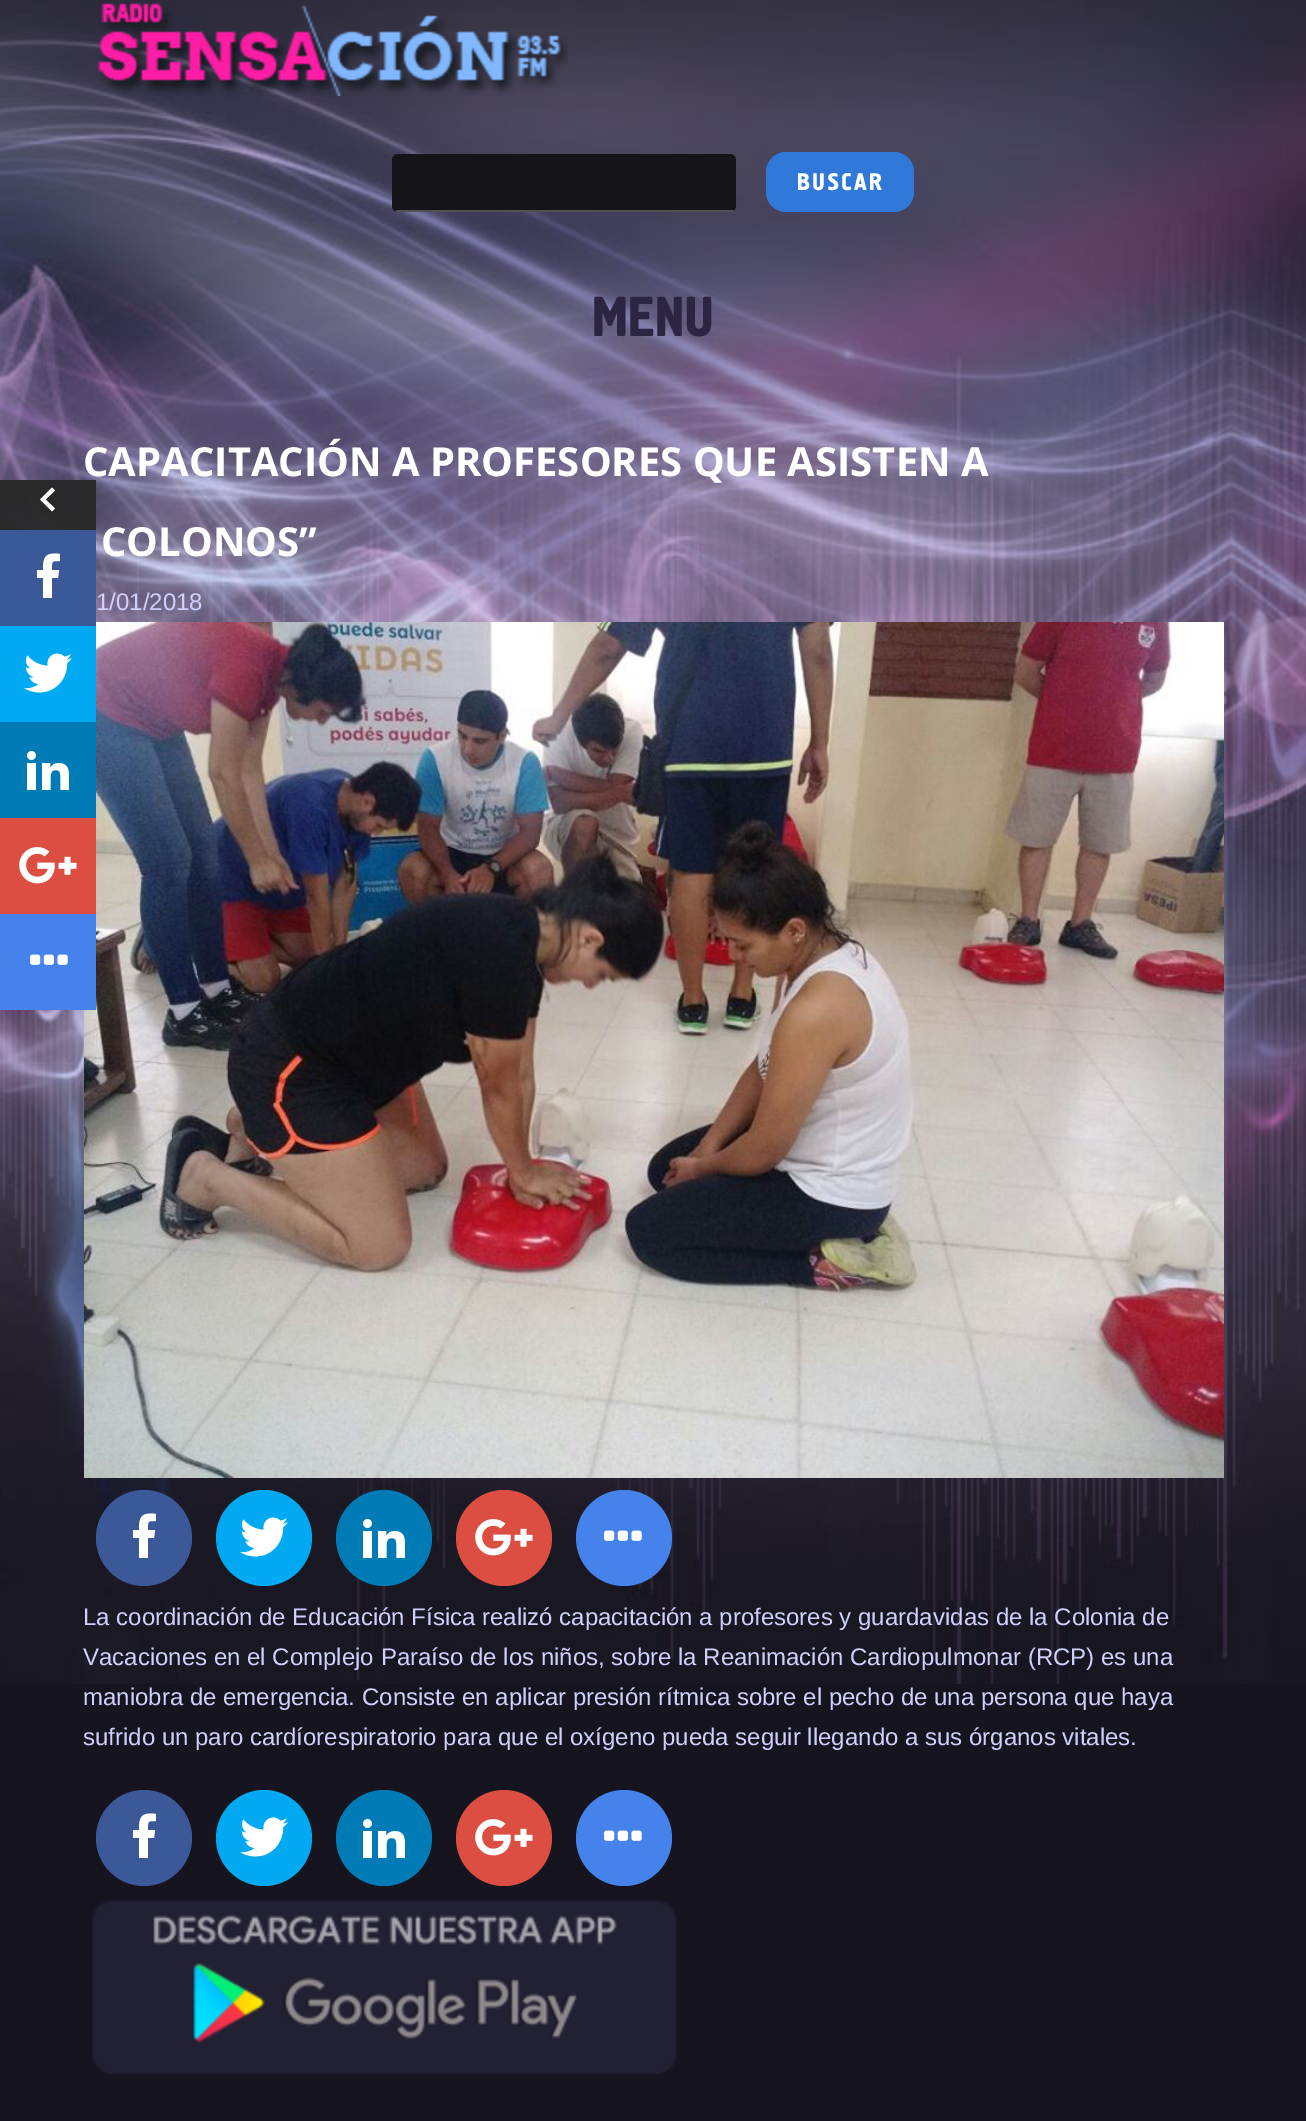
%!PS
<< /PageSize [1306 2121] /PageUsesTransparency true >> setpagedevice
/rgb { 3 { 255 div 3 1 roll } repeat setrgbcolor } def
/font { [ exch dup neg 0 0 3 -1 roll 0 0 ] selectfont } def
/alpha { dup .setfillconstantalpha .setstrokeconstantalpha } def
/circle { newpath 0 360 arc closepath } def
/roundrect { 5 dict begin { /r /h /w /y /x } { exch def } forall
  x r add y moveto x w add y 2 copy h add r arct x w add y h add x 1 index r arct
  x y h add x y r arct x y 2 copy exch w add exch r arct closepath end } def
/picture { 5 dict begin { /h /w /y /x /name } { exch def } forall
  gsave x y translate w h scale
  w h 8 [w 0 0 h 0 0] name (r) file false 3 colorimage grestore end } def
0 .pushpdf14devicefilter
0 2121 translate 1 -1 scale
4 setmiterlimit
22 21 31 rgb
0 0 1306 2121 rectfill
(img/1.rgb) 0 0 1306 1684 picture
(img/2.rgb) 97 3 471 93 picture
21 20 24 rgb
392 154 344 58 6 roundrect fill
80 80 82 rgb
396 210 338 2 rectfill
49 121 216 rgb
766 152 148 60 20 roundrect fill
(img/7.rgb) 84 622 1140 856 picture
59 89 152 rgb
0 530 96 96 rectfill
255 255 255 rgb
60 554 moveto 60 561 lineto 51 561 52 561 52 570 curveto 59 570 lineto 58 578 lineto 52 578 lineto 52 598 lineto 43 598 lineto 43 578 lineto 37 578 lineto 37 570 lineto 43 570 lineto 43 557 45 552 60 554 curveto closepath fill
0 169 241 rgb
0 626 96 96 rectfill
(img/3.rgb) 24 653 48 40 picture
0 123 182 rgb
0 722 96 96 rectfill
(img/4.rgb) 27 751 42 39 picture
220 78 65 rgb
0 818 96 96 rectfill
(img/5.rgb) 19 847 58 37 picture
69 130 236 rgb
0 914 96 96 rectfill
(img/6.rgb) 30 954 38 11 picture
59 89 152 rgb
144 1538 48 circle fill
255 255 255 rgb
156 1514 moveto 156 1521 lineto 147 1521 148 1521 148 1530 curveto 155 1530 lineto 154 1538 lineto 148 1538 lineto 148 1558 lineto 139 1558 lineto 139 1538 lineto 133 1538 lineto 133 1530 lineto 139 1530 lineto 139 1517 141 1512 156 1514 curveto closepath fill
0 169 241 rgb
264 1538 48 circle fill
(img/3.rgb) 240 1517 48 40 picture
0 123 182 rgb
384 1538 48 circle fill
(img/4.rgb) 363 1519 42 39 picture
220 78 65 rgb
504 1538 48 circle fill
(img/5.rgb) 475 1519 58 37 picture
69 130 236 rgb
624 1538 48 circle fill
(img/6.rgb) 604 1530 38 11 picture
59 89 152 rgb
144 1838 48 circle fill
255 255 255 rgb
156 1814 moveto 156 1821 lineto 147 1821 148 1821 148 1830 curveto 155 1830 lineto 154 1838 lineto 148 1838 lineto 148 1858 lineto 139 1858 lineto 139 1838 lineto 133 1838 lineto 133 1830 lineto 139 1830 lineto 139 1817 141 1812 156 1814 curveto closepath fill
0 169 241 rgb
264 1838 48 circle fill
(img/3.rgb) 240 1817 48 40 picture
0 123 182 rgb
384 1838 48 circle fill
(img/4.rgb) 363 1819 42 39 picture
220 78 65 rgb
504 1838 48 circle fill
(img/5.rgb) 475 1819 58 37 picture
69 130 236 rgb
624 1838 48 circle fill
(img/6.rgb) 604 1830 38 11 picture
(img/8.rgb) 92 1900 585 175 picture
/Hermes-Regular 24 font
255 255 255 rgb
797 190 moveto 2 0 (BUSCAR) ashow
/Hermes-Regular 56 font
44 37 65 rgb
592 336 moveto (MENU) show
/OpenSans-Bold 40 font
255 255 255 rgb
83 476 moveto (CAPACITACIÓN A PROFESORES QUE ASISTEN A) show
0.8 alpha
39 39 39 rgb
0 480 96 50 rectfill
1 alpha
255 255 255 rgb
101 556 moveto (COLONOS”) show
0.8 alpha
39 39 39 rgb
0 480 96 50 rectfill
1 alpha
255 255 255 rgb
55 508.5 moveto 45.5 499.5 lineto 55 490.5 lineto 52 487.5 lineto 40 499.5 lineto 52 511.5 lineto closepath fill
/LiberationSans-Regular 24 font
208 208 252 rgb
[
  [(1/01/2018) 96 610]
  [(La coordinación de Educación Física realizó capacitación a profesores y guardavidas de la Colonia de) 83 1625]
  [(Vacaciones en el Complejo Paraíso de los niños, sobre la Reanimación Cardiopulmonar \(RCP\) es una) 83 1665]
  [(maniobra de emergencia. Consiste en aplicar presión rítmica sobre el pecho de una persona que haya) 83 1705]
  [(sufrido un paro cardíorespiratorio para que el oxígeno pueda seguir llegando a sus órganos vitales.) 83 1745]
] { aload pop moveto show } forall
.poppdf14devicefilter showpage
